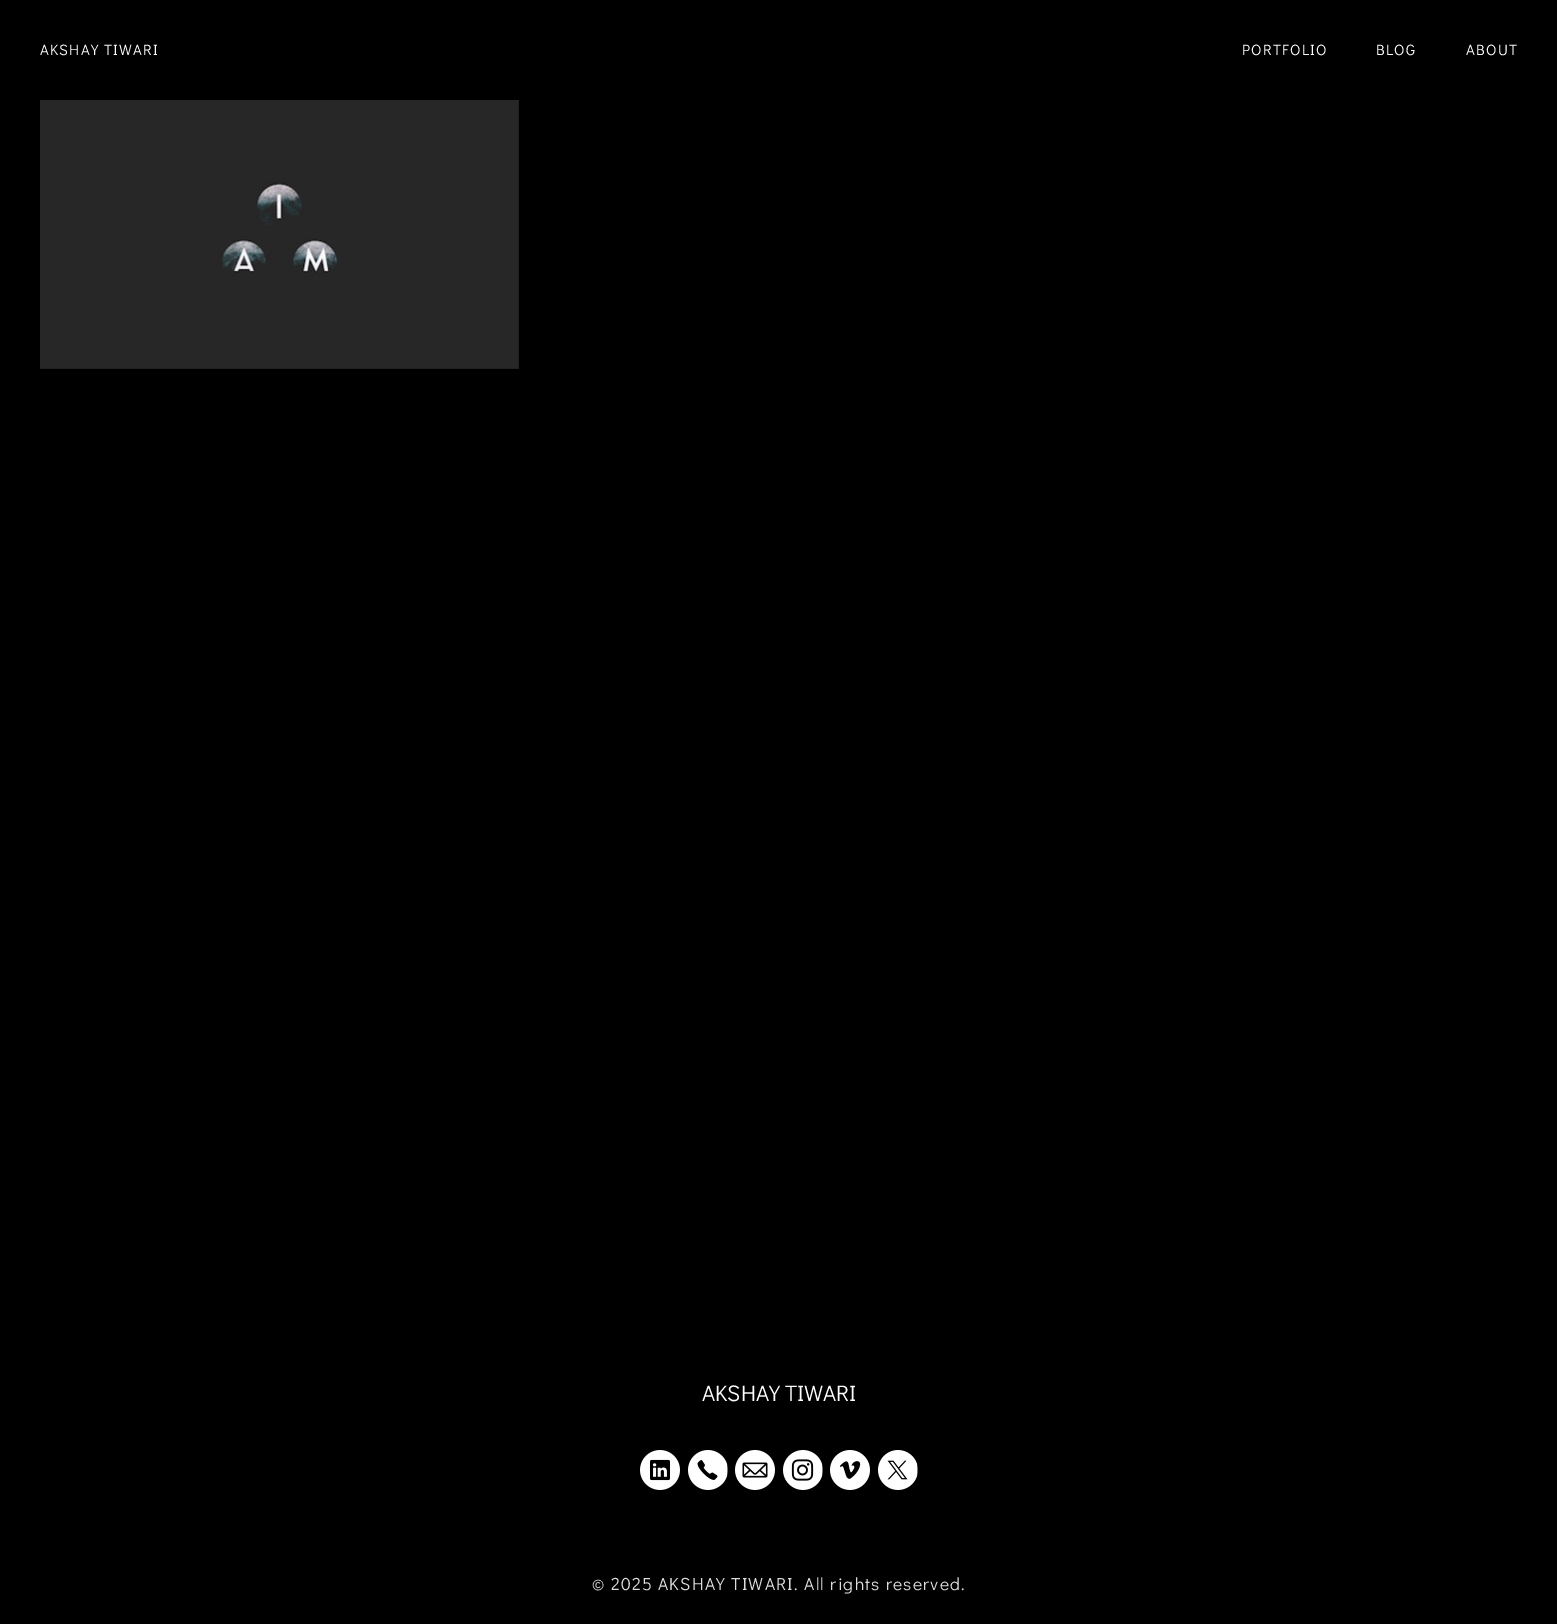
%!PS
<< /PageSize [1557 1624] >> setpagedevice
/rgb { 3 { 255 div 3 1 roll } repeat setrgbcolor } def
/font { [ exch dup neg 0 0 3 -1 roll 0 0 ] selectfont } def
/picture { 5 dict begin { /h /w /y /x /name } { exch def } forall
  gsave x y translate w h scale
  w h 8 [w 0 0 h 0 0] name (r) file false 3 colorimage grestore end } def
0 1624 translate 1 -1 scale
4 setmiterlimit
0 0 0 rgb
0 0 1557 1624 rectfill
28 28 28 rgb
40 100 479 269 rectfill
(img/1.rgb) 40 100 479 269 picture
(img/2.rgb) 640 1450 40 40 picture
(img/3.rgb) 688 1450 40 40 picture
(img/4.rgb) 735 1450 40 40 picture
(img/5.rgb) 783 1450 40 40 picture
(img/6.rgb) 830 1450 40 40 picture
(img/7.rgb) 878 1450 40 40 picture
/DidactGothic-Regular 15 font
255 255 255 rgb
40 55 moveto 1.25 0 (AKSHAY TIWARI) ashow
1242 55 moveto 1.25 0 (PORTFOLIO) ashow
1376 55 moveto 1.25 0 (BLOG) ashow
1466 55 moveto 1.25 0 (ABOUT) ashow
/DidactGothic-Regular 22.5 font
702 1401 moveto (AKSHAY TIWARI) show
/DidactGothic-Regular 17.5 font
222 222 222 rgb
592 1590 moveto 1.25 0 (© 2025 AKSHAY TIWARI. All rights reserved.) ashow
showpage
